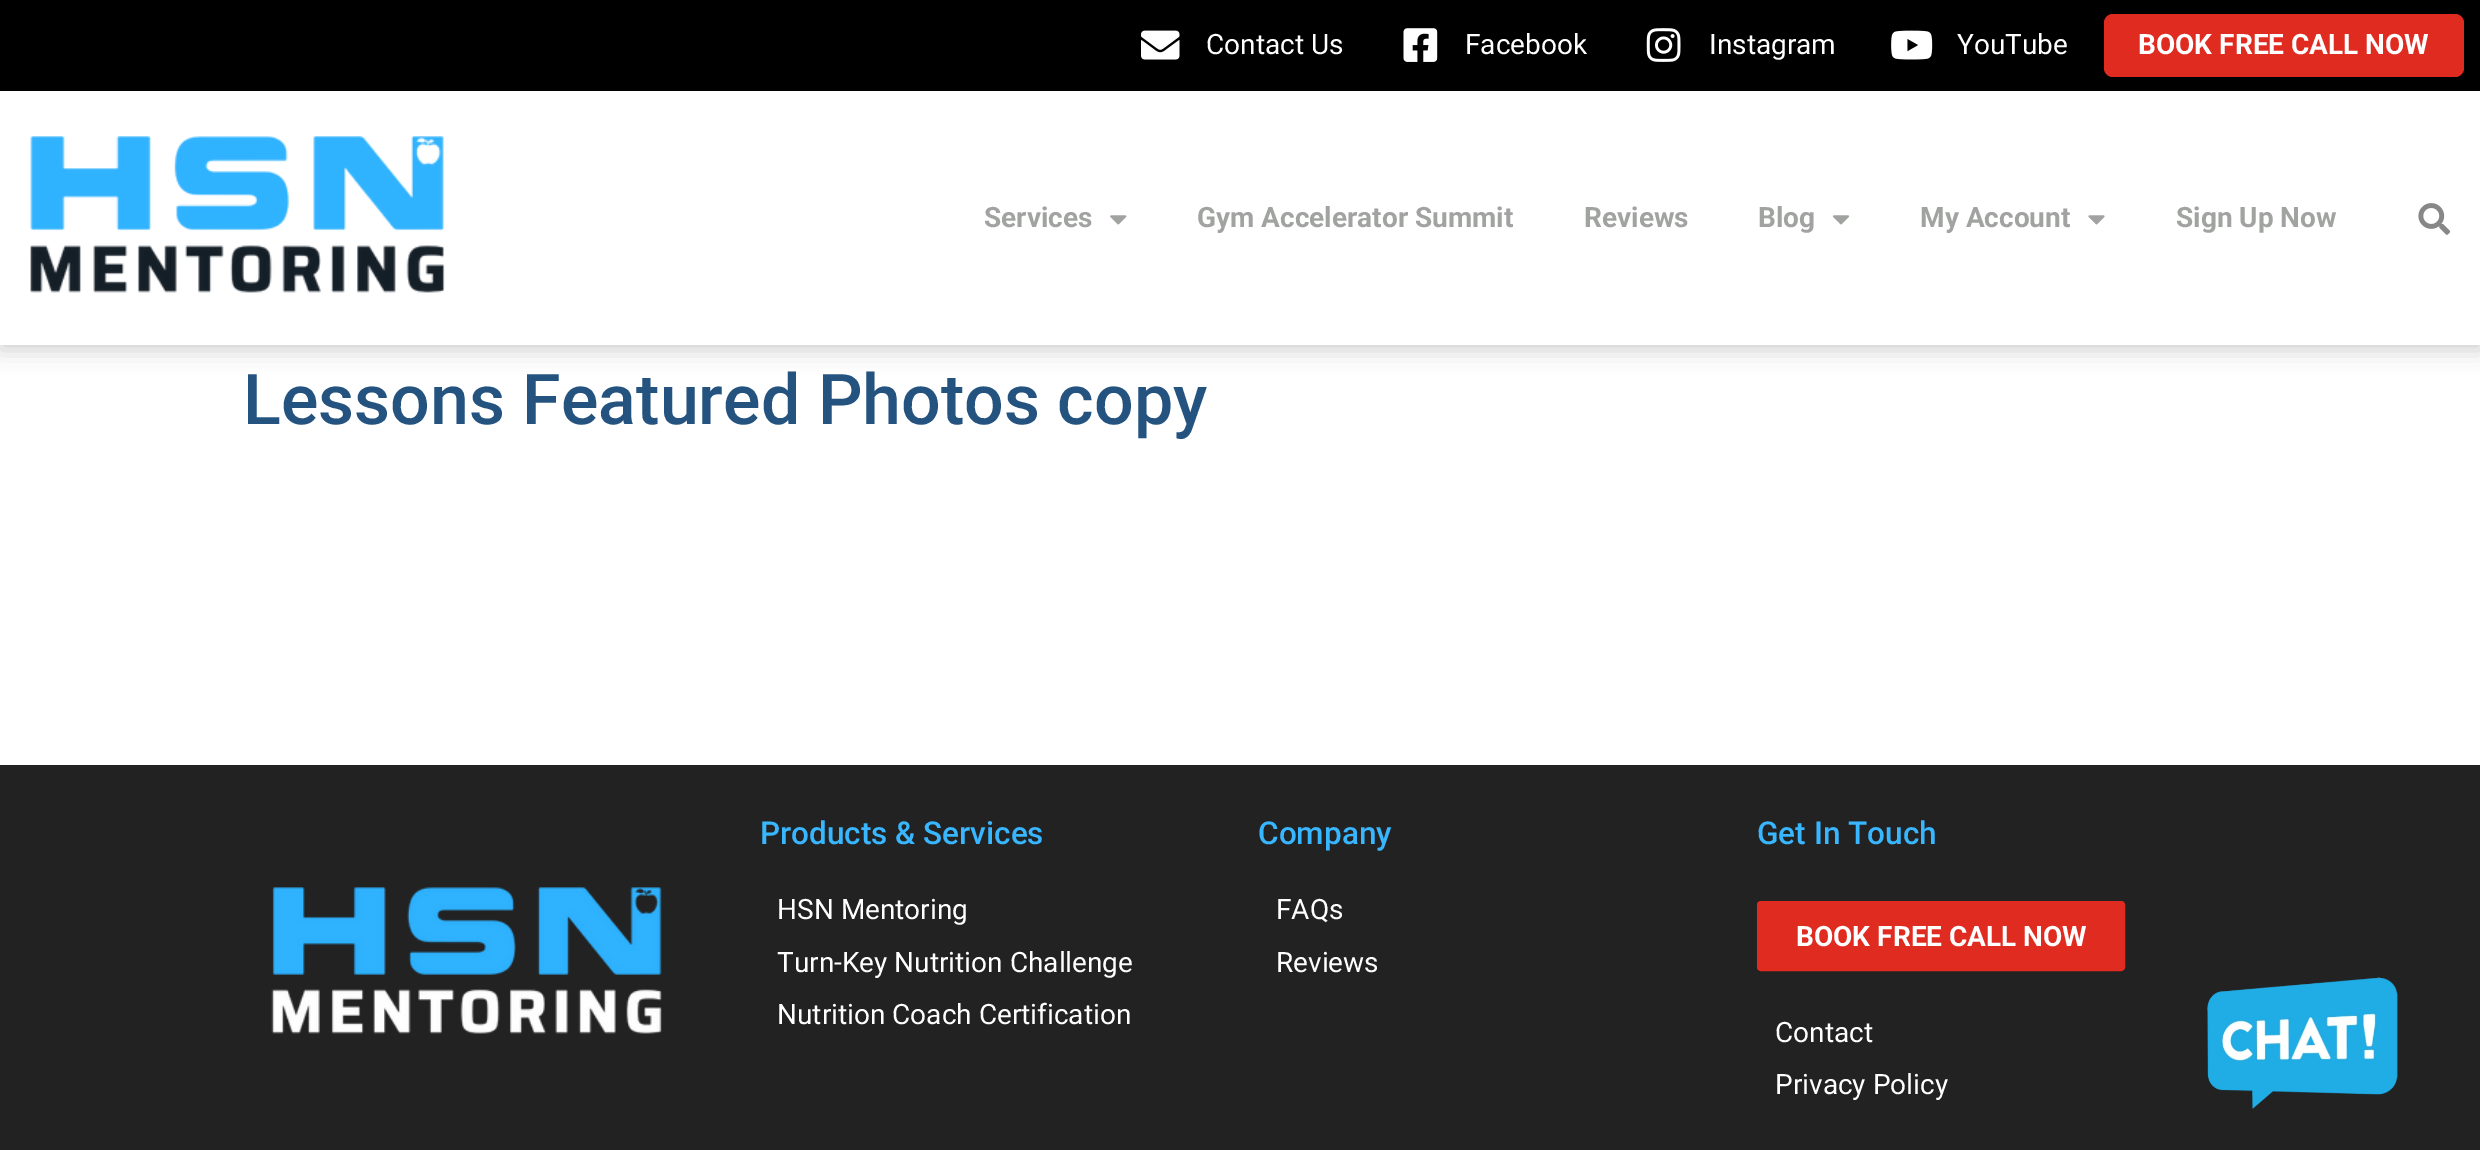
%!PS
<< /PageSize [2480 1150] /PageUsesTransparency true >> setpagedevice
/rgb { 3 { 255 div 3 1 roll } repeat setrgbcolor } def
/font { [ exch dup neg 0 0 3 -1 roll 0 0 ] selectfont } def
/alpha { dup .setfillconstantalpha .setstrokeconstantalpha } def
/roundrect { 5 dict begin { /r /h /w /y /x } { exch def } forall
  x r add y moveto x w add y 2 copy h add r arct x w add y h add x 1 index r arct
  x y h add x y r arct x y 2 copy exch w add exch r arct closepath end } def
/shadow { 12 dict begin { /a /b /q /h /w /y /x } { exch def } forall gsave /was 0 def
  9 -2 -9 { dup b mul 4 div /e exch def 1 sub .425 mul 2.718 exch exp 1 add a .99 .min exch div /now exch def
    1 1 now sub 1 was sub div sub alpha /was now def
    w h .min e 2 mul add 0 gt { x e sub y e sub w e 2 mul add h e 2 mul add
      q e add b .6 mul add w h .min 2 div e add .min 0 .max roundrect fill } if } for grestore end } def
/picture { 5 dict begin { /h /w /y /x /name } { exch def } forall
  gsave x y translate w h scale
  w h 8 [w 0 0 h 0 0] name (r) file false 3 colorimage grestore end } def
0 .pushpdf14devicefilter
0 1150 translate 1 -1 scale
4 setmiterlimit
255 255 255 rgb
0 0 2480 1150 rectfill
0 0 0 rgb
0 5 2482 345 0 10.5 0.19 shadow
0 0 2480 91 rectfill
(img/1.rgb) 1141 30 39 30 picture
(img/2.rgb) 1403 28 35 34 picture
(img/3.rgb) 1646 28 35 34 picture
(img/4.rgb) 1891 30 42 30 picture
224 43 32 rgb
2104 14 360 63 9 roundrect fill
255 255 255 rgb
0 91 2480 254 rectfill
(img/5.rgb) 30 136 415 157 picture
(img/6.rgb) 1110 215 17 10 picture
(img/7.rgb) 1832 215 18 10 picture
(img/8.rgb) 2088 215 17 10 picture
(img/9.rgb) 2418 203 33 32 picture
34 34 34 rgb
0 765 2480 385 rectfill
(img/10.rgb) 271 887 391 147 picture
224 43 32 rgb
1759 903 364 66 2 roundrect gsave fill grestore
4 setlinewidth
stroke
(img/11.rgb) 2207 977 191 132 picture
/Roboto-Regular 28 font
255 255 255 rgb
[
  [(Contact Us) 1206 54]
  [(Facebook) 1465 54]
  [(Instagram) 1709 54]
  [(YouTube) 1957 54]
] { aload pop moveto show } forall
/Roboto-Bold 28 font
2138 54 moveto (BOOK FREE CALL NOW) show
161 163 161 rgb
[
  [(Services) 984 227]
  [(Gym Accelerator Summit) 1197 227]
  [(Reviews) 1584 227]
  [(Blog) 1758 227]
  [(My Account) 1920 227]
  [(Sign Up Now) 2176 227]
] { aload pop moveto show } forall
/Roboto-Medium 70 font
36 83 127 rgb
243 424 moveto (Lessons Featured Photos copy) show
/Roboto-Medium 31.5 font
56 182 255 rgb
760 844 moveto (Products & Services) show
/Roboto-Regular 28 font
255 255 255 rgb
[
  [(HSN Mentoring) 777 919]
  [(Turn-Key Nutrition Challenge) 777 972]
  [(Nutrition Coach Certification) 777 1024]
] { aload pop moveto show } forall
/Roboto-Medium 31.5 font
56 182 255 rgb
1258 844 moveto (Company) show
/Roboto-Regular 28 font
255 255 255 rgb
1276 919 moveto (FAQs) show
1276 972 moveto (Reviews) show
/Roboto-Medium 31.5 font
56 182 255 rgb
1757 844 moveto (Get In Touch) show
/Roboto-Bold 28 font
255 255 255 rgb
1796 946 moveto (BOOK FREE CALL NOW) show
/Roboto-Regular 28 font
1775 1042 moveto (Contact) show
1775 1094 moveto (Privacy Policy) show
.poppdf14devicefilter showpage
